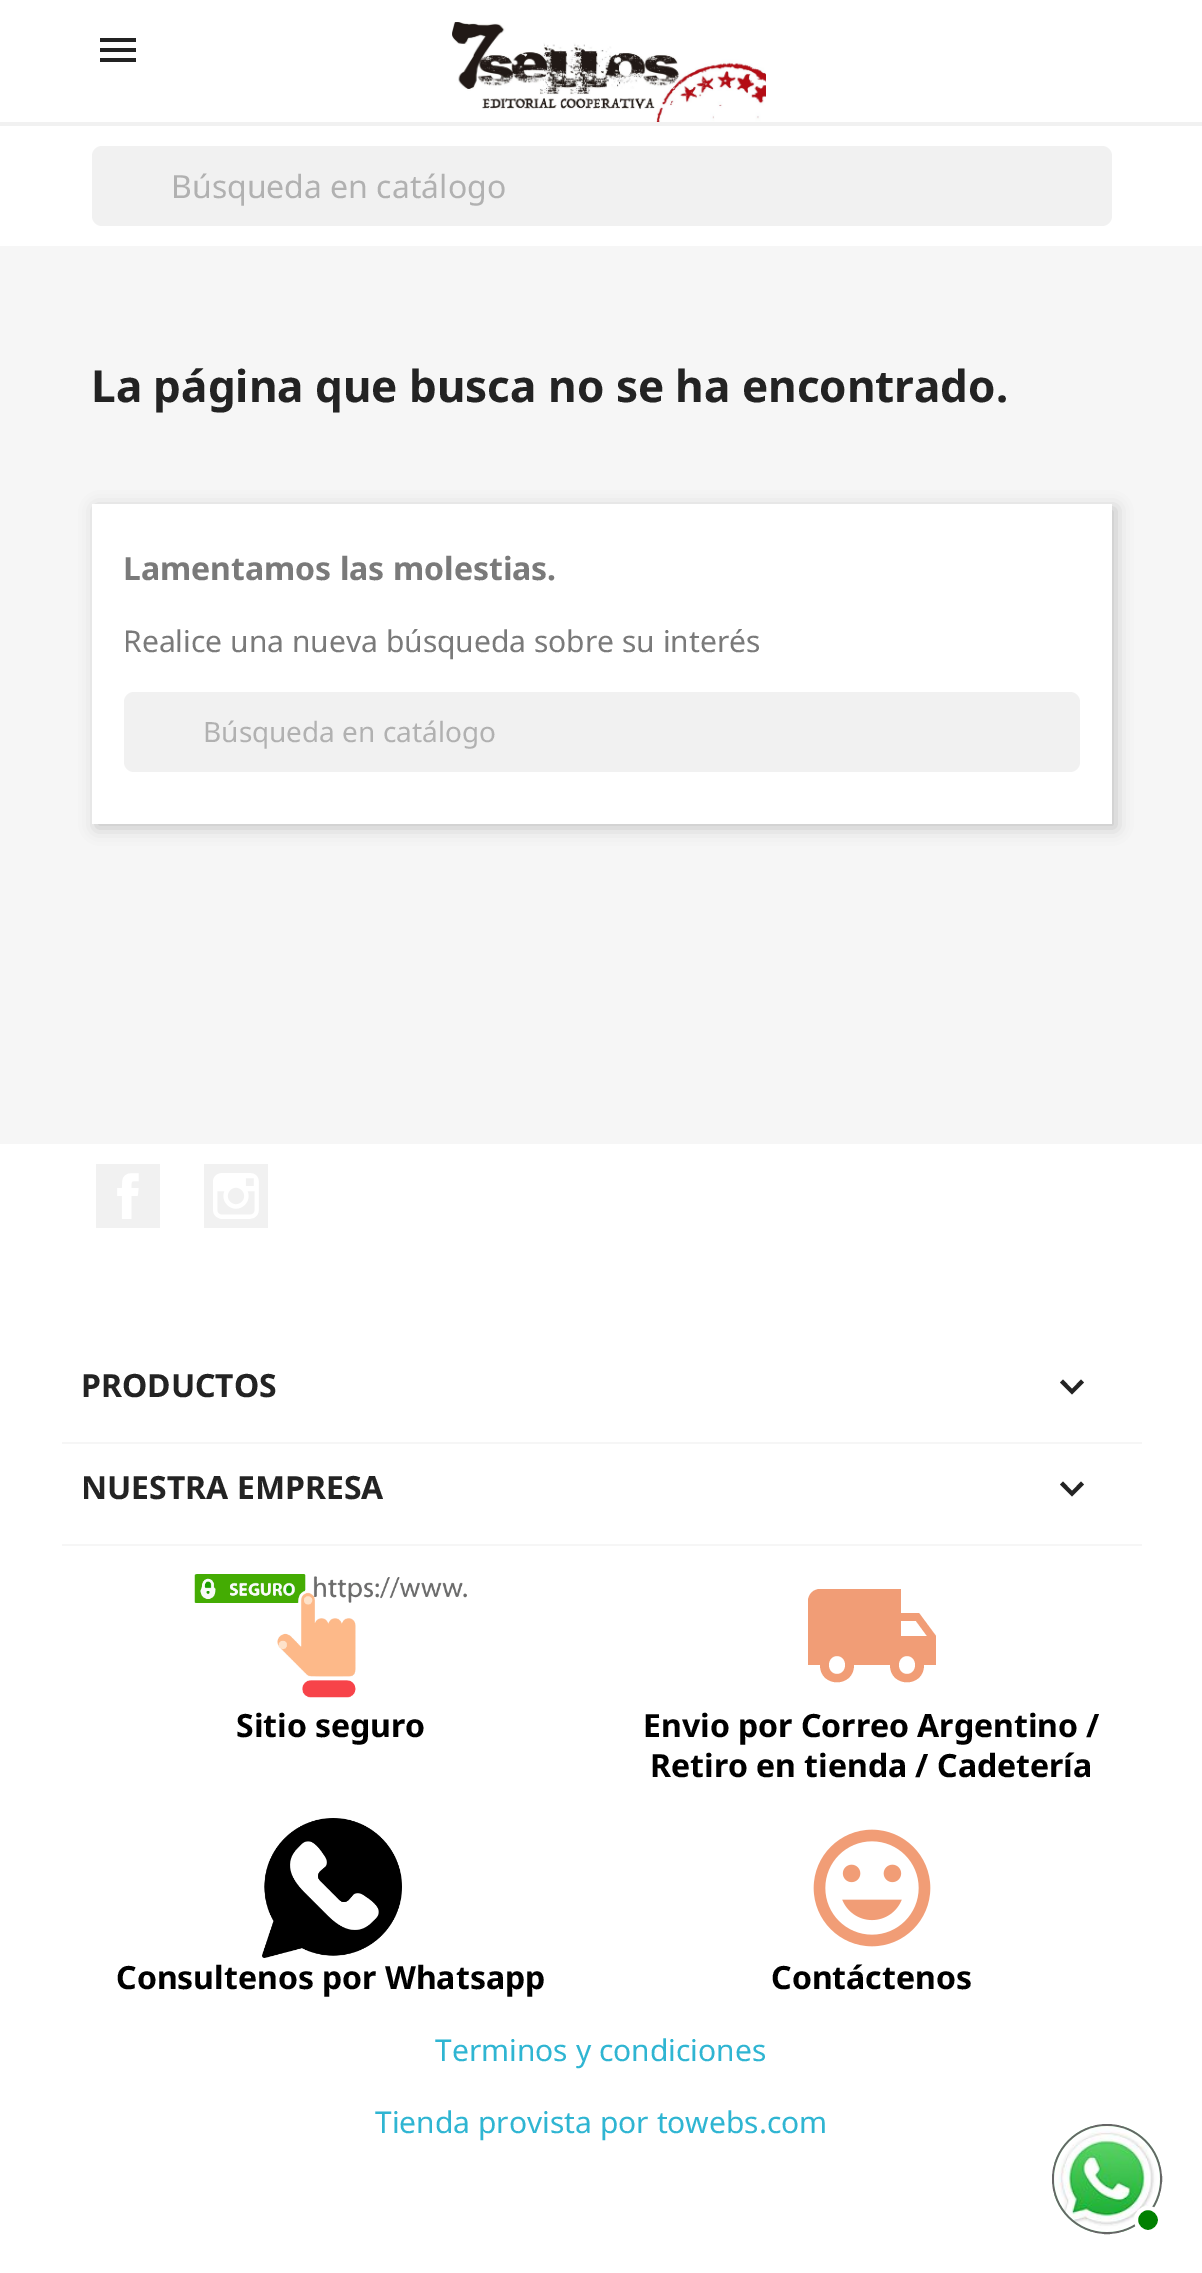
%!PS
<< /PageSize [1202 2273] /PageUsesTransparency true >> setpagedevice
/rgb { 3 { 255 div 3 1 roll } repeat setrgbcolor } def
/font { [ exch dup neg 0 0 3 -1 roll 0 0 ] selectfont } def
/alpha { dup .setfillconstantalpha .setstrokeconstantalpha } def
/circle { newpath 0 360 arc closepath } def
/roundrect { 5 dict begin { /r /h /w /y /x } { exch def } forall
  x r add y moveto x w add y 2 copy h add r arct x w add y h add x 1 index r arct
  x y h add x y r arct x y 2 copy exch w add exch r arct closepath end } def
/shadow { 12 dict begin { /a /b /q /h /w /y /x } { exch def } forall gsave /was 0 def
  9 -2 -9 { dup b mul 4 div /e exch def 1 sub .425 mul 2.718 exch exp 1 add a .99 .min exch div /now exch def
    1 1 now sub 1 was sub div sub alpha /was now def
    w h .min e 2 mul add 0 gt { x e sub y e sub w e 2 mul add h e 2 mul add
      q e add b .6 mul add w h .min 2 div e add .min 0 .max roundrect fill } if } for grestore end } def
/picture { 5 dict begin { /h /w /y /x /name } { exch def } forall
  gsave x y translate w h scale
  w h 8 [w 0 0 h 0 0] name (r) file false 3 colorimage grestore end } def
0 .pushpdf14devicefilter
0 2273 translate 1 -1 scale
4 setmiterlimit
255 255 255 rgb
0 0 1202 2273 rectfill
241 241 241 rgb
0 122 1202 4 rectfill
35 35 35 rgb
100 38 moveto 136 38 lineto 136 42 lineto 100 42 lineto closepath 100 52 moveto 100 48 lineto 136 48 lineto 136 52 lineto closepath 100 62 moveto 100 58 lineto 136 58 lineto 136 62 lineto closepath fill
(img/1.rgb) 452 22 314 100 picture
241 241 241 rgb
92 146 1020 80 10 roundrect fill
246 246 246 rgb
0 246 1202 898 rectfill
0 0 0 rgb
96 508 1020 320 0 8 0.2 shadow
255 255 255 rgb
92 504 1020 320 rectfill
241 241 241 rgb
124 692 956 80 10 roundrect fill
96 1164 64 64 rectfill
(img/2.rgb) 117 1173 22 46 picture
204 1164 64 64 rectfill
(img/3.rgb) 213 1173 46 46 picture
246 246 246 rgb
62 1442 1080 2 rectfill
35 35 35 rgb
1063 1379.5 moveto 1072 1389 lineto 1081 1379.5 lineto 1084 1382.5 lineto 1072 1394.5 lineto 1060 1382.5 lineto closepath fill
246 246 246 rgb
62 1544 1080 2 rectfill
35 35 35 rgb
1063 1481.5 moveto 1072 1491 lineto 1081 1481.5 lineto 1084 1484.5 lineto 1072 1496.5 lineto 1060 1484.5 lineto closepath fill
102 102 102 rgb
2 setlinewidth
1107 2179 54 circle stroke
(img/4.rgb) 1054 2126 106 106 picture
0 128 0 rgb
1148 2220 12 circle gsave fill grestore
255 255 255 rgb
4 setlinewidth
stroke
(img/5.rgb) 194 1574 273 124 picture
241 157 118 rgb
919 1613 moveto 901 1613 lineto 901 1589 lineto 820 1589 lineto 813 1589 808 1595 808 1601 curveto 808 1665 lineto 820 1665 lineto 820 1688 854 1688 854 1665 curveto 890 1665 lineto 890 1688 924 1688 924 1665 curveto 936 1665 lineto 936 1636 lineto closepath 837 1674 moveto 826 1674 826 1656 837 1656 curveto 848 1656 848 1674 837 1674 curveto closepath 916 1621 moveto 927 1636 lineto 901 1636 lineto 901 1621 lineto closepath 907 1674 moveto 896 1674 896 1656 907 1656 curveto 918 1656 918 1674 907 1674 curveto closepath fill
(img/6.rgb) 262 1818 140 140 picture
(img/7.rgb) 813 1829 118 118 picture
/NotoSans-Regular 32 font
177 177 177 rgb
171 198 moveto (Búsqueda en catálogo) show
/NotoSans-Bold 44 font
35 35 35 rgb
91 402 moveto (La página que busca no se ha encontrado.) show
/NotoSans-Bold 32 font
122 122 122 rgb
123 580 moveto (Lamentamos las molestias.) show
/NotoSans-Regular 30 font
123 652 moveto (Realice una nueva búsqueda sobre su interés) show
/NotoSans-Regular 28 font
177 177 177 rgb
203 742 moveto (Búsqueda en catálogo) show
/NotoSans-Bold 32 font
35 35 35 rgb
81 1397 moveto (PRODUCTOS) show
81 1499 moveto (NUESTRA EMPRESA) show
0 0 0 rgb
[
  [(Sitio seguro) 236 1737]
  [(Envio por Correo Argentino /) 643 1737]
  [(Retiro en tienda / Cadetería) 650 1777]
  [(Consultenos por Whatsapp) 116 1989]
  [(Contáctenos) 771 1989]
] { aload pop moveto show } forall
/NotoSans-Regular 30 font
47 181 210 rgb
435 2061 moveto (Terminos y condiciones) show
375 2133 moveto (Tienda provista por towebs.com) show
.poppdf14devicefilter showpage
